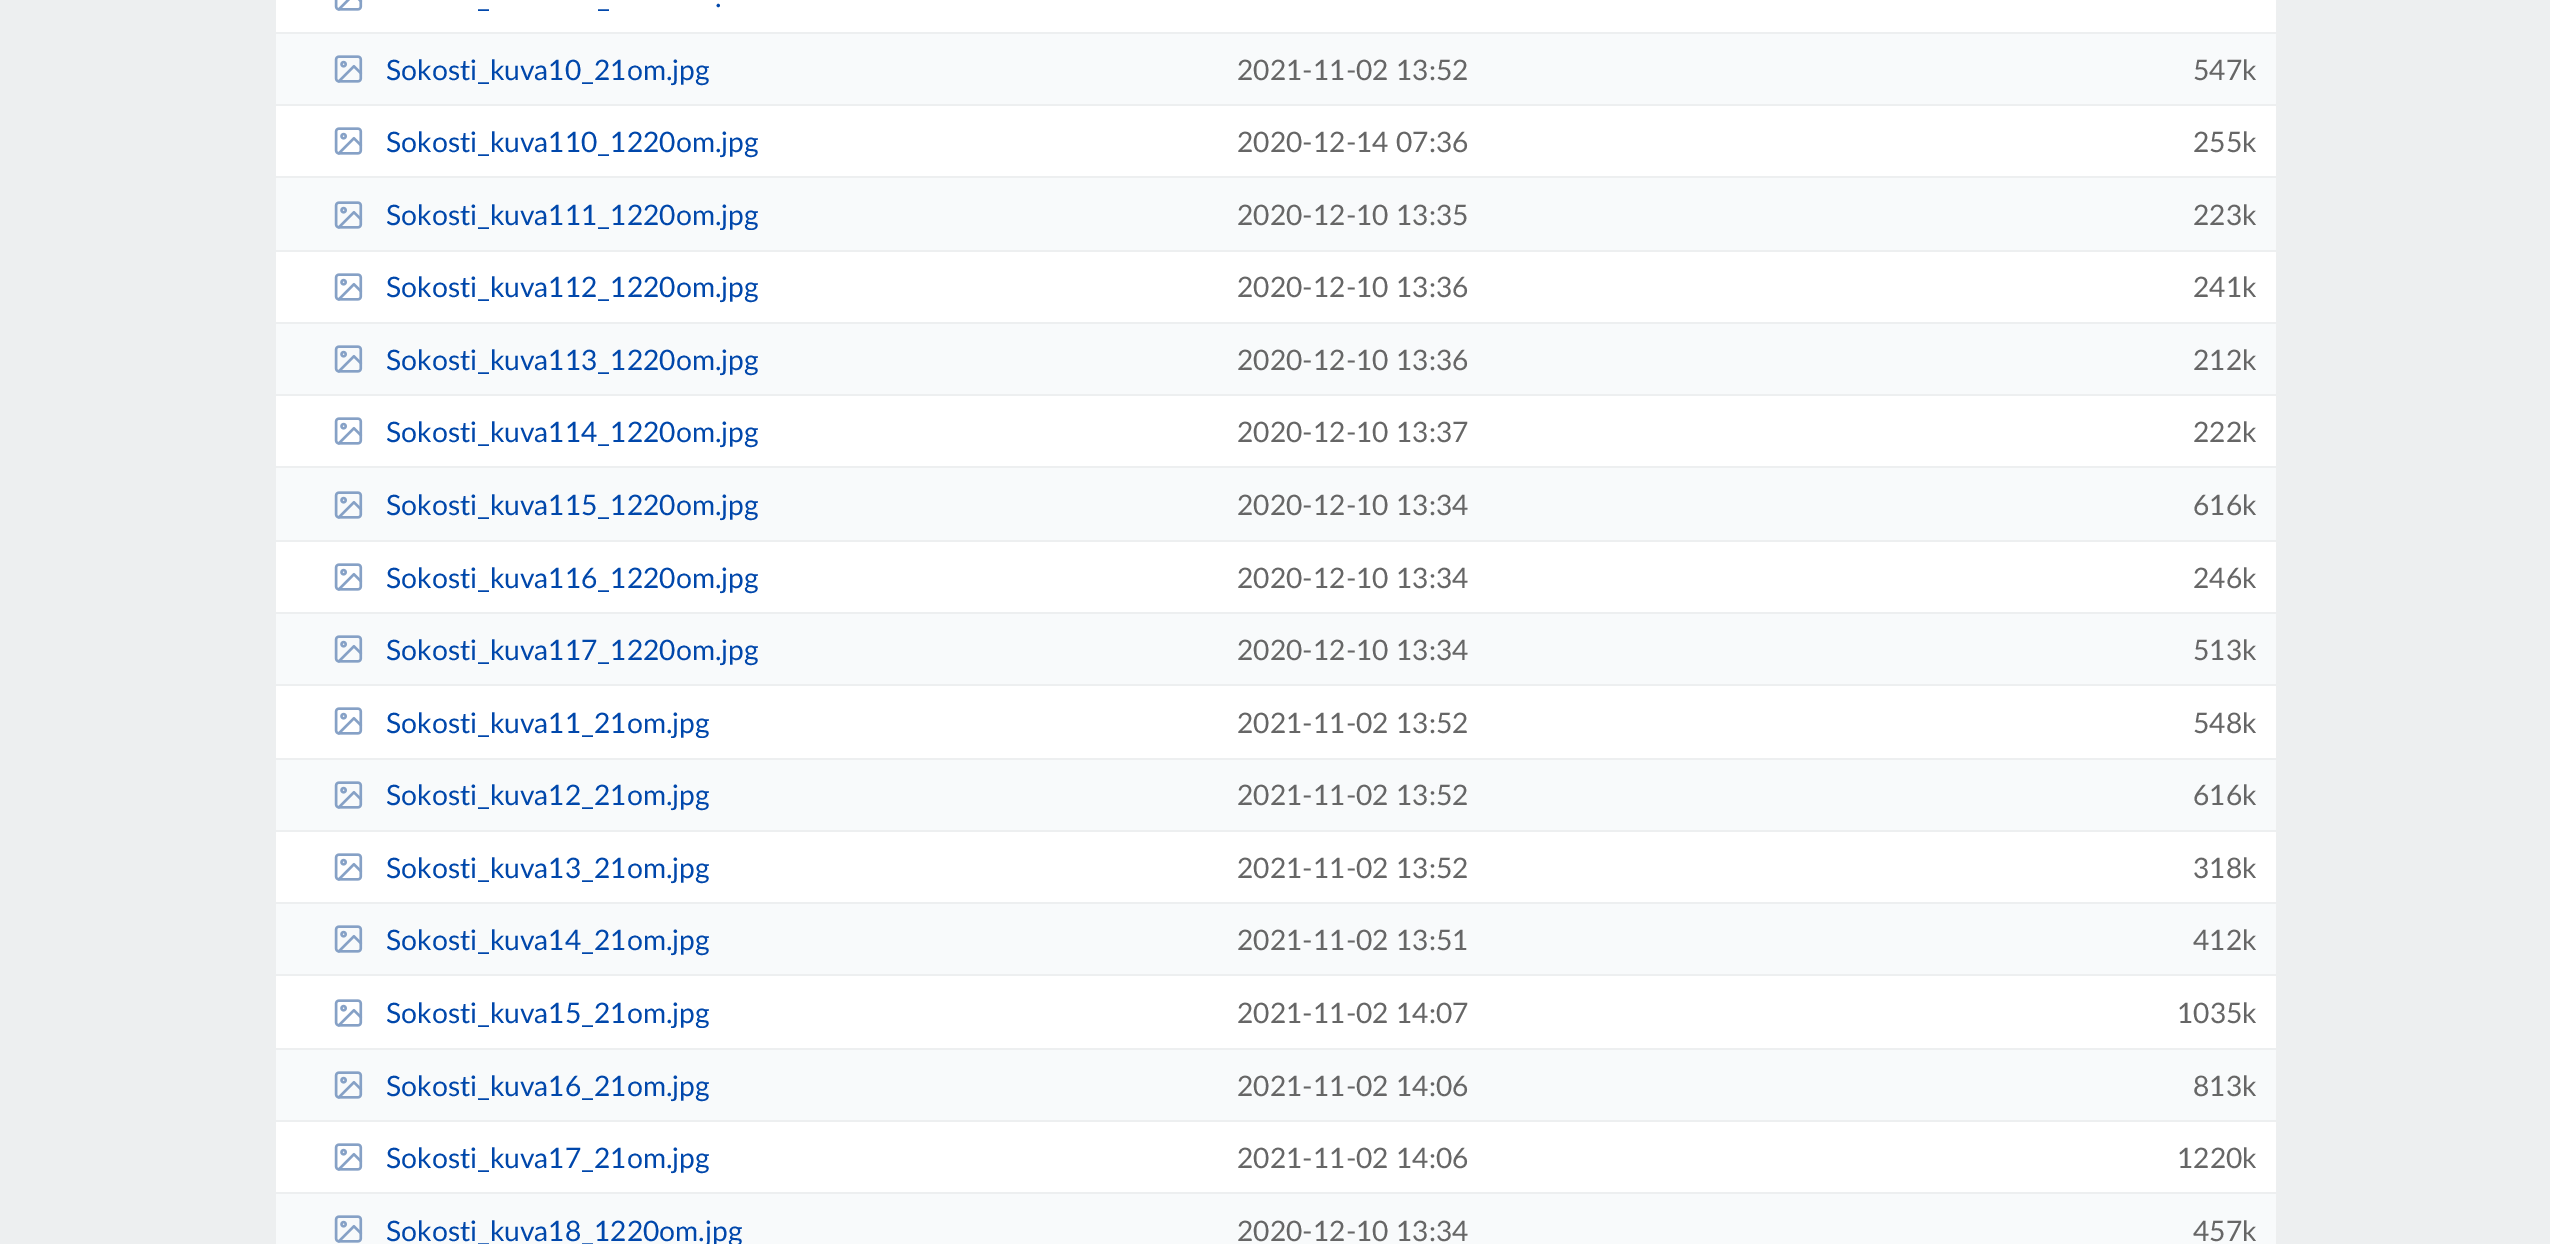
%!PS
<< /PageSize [2550 1244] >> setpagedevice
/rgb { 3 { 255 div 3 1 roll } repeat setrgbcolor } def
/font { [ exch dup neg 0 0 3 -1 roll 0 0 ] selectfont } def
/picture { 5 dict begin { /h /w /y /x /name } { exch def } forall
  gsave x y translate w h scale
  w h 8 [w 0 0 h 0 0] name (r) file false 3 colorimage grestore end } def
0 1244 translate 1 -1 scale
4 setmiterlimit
237 239 240 rgb
0 0 2550 1244 rectfill
255 255 255 rgb
276 0 2000 1192 rectfill
(img/1.rgb) 334 0 29 11 picture
[
  [276 34 2000 70 248 250 251]
  [276 32 2000 2 237 239 240]
  [276 104 2000 2 237 239 240]
] { aload pop rgb rectfill } forall
(img/2.rgb) 334 55 29 28 picture
(img/3.rgb) 334 127 29 28 picture
[
  [276 178 2000 72 248 250 251]
  [276 176 2000 2 237 239 240]
  [276 250 2000 2 237 239 240]
] { aload pop rgb rectfill } forall
(img/2.rgb) 334 201 29 28 picture
(img/3.rgb) 334 273 29 28 picture
[
  [276 324 2000 70 248 250 251]
  [276 322 2000 2 237 239 240]
  [276 394 2000 2 237 239 240]
] { aload pop rgb rectfill } forall
(img/2.rgb) 334 345 29 28 picture
(img/3.rgb) 334 417 29 28 picture
[
  [276 468 2000 72 248 250 251]
  [276 466 2000 2 237 239 240]
  [276 540 2000 2 237 239 240]
] { aload pop rgb rectfill } forall
(img/2.rgb) 334 491 29 28 picture
(img/3.rgb) 334 563 29 28 picture
[
  [276 614 2000 70 248 250 251]
  [276 612 2000 2 237 239 240]
  [276 684 2000 2 237 239 240]
] { aload pop rgb rectfill } forall
(img/2.rgb) 334 635 29 28 picture
(img/3.rgb) 334 707 29 28 picture
[
  [276 760 2000 70 248 250 251]
  [276 758 2000 2 237 239 240]
  [276 830 2000 2 237 239 240]
] { aload pop rgb rectfill } forall
(img/2.rgb) 334 781 29 28 picture
(img/3.rgb) 334 853 29 28 picture
[
  [276 904 2000 70 248 250 251]
  [276 902 2000 2 237 239 240]
  [276 974 2000 2 237 239 240]
] { aload pop rgb rectfill } forall
(img/2.rgb) 334 925 29 28 picture
(img/3.rgb) 334 999 29 28 picture
[
  [276 1050 2000 70 248 250 251]
  [276 1048 2000 2 237 239 240]
  [276 1120 2000 2 237 239 240]
] { aload pop rgb rectfill } forall
(img/2.rgb) 334 1071 29 28 picture
(img/3.rgb) 334 1143 29 28 picture
248 250 251 rgb
276 1194 2000 50 rectfill
(img/2.rgb) 334 1215 29 28 picture
/Lato-Regular 28.2 font
0 71 171 rgb
[
  [(.) 715 7]
  [(_) 477 7]
  [(_) 597 7]
  [(Sokosti_kuva10_21om.jpg) 386 80]
] { aload pop moveto show } forall
102 102 102 rgb
1237 80 moveto (2021-11-02 13:52) show
2193 80 moveto (547k) show
0 71 171 rgb
386 152 moveto (Sokosti_kuva110_1220om.jpg) show
102 102 102 rgb
1237 152 moveto (2020-12-14 07:36) show
2193 152 moveto (255k) show
gsave
332 196 868 34 rectclip
0 71 171 rgb
386 225 moveto (Sokosti_kuva111_1220om.jpg) show
grestore
1237 225 moveto (2020-12-10 13:35) show
2193 225 moveto (223k) show
0 71 171 rgb
386 297 moveto (Sokosti_kuva112_1220om.jpg) show
102 102 102 rgb
1237 297 moveto (2020-12-10 13:36) show
2193 297 moveto (241k) show
0 71 171 rgb
386 370 moveto (Sokosti_kuva113_1220om.jpg) show
102 102 102 rgb
1237 370 moveto (2020-12-10 13:36) show
2193 370 moveto (212k) show
0 71 171 rgb
386 442 moveto (Sokosti_kuva114_1220om.jpg) show
102 102 102 rgb
1237 442 moveto (2020-12-10 13:37) show
2193 442 moveto (222k) show
0 71 171 rgb
386 515 moveto (Sokosti_kuva115_1220om.jpg) show
102 102 102 rgb
1237 515 moveto (2020-12-10 13:34) show
2193 515 moveto (616k) show
0 71 171 rgb
386 588 moveto (Sokosti_kuva116_1220om.jpg) show
102 102 102 rgb
1237 588 moveto (2020-12-10 13:34) show
2193 588 moveto (246k) show
0 71 171 rgb
386 660 moveto (Sokosti_kuva117_1220om.jpg) show
102 102 102 rgb
1237 660 moveto (2020-12-10 13:34) show
2193 660 moveto (513k) show
gsave
332 704 868 34 rectclip
0 71 171 rgb
386 733 moveto (Sokosti_kuva11_21om.jpg) show
grestore
1237 733 moveto (2021-11-02 13:52) show
2193 733 moveto (548k) show
0 71 171 rgb
386 805 moveto (Sokosti_kuva12_21om.jpg) show
102 102 102 rgb
1237 805 moveto (2021-11-02 13:52) show
2193 805 moveto (616k) show
0 71 171 rgb
386 878 moveto (Sokosti_kuva13_21om.jpg) show
102 102 102 rgb
1237 878 moveto (2021-11-02 13:52) show
2193 878 moveto (318k) show
0 71 171 rgb
386 950 moveto (Sokosti_kuva14_21om.jpg) show
102 102 102 rgb
1237 950 moveto (2021-11-02 13:51) show
2193 950 moveto (412k) show
gsave
332 994 868 34 rectclip
0 71 171 rgb
386 1023 moveto (Sokosti_kuva15_21om.jpg) show
grestore
1237 1023 moveto (2021-11-02 14:07) show
2177 1023 moveto (1035k) show
0 71 171 rgb
386 1096 moveto (Sokosti_kuva16_21om.jpg) show
102 102 102 rgb
1237 1096 moveto (2021-11-02 14:06) show
2193 1096 moveto (813k) show
0 71 171 rgb
386 1168 moveto (Sokosti_kuva17_21om.jpg) show
102 102 102 rgb
1237 1168 moveto (2021-11-02 14:06) show
2177 1168 moveto (1220k) show
0 71 171 rgb
386 1241 moveto (Sokosti_kuva18_1220om.jpg) show
102 102 102 rgb
1237 1241 moveto (2020-12-10 13:34) show
2193 1241 moveto (457k) show
showpage
